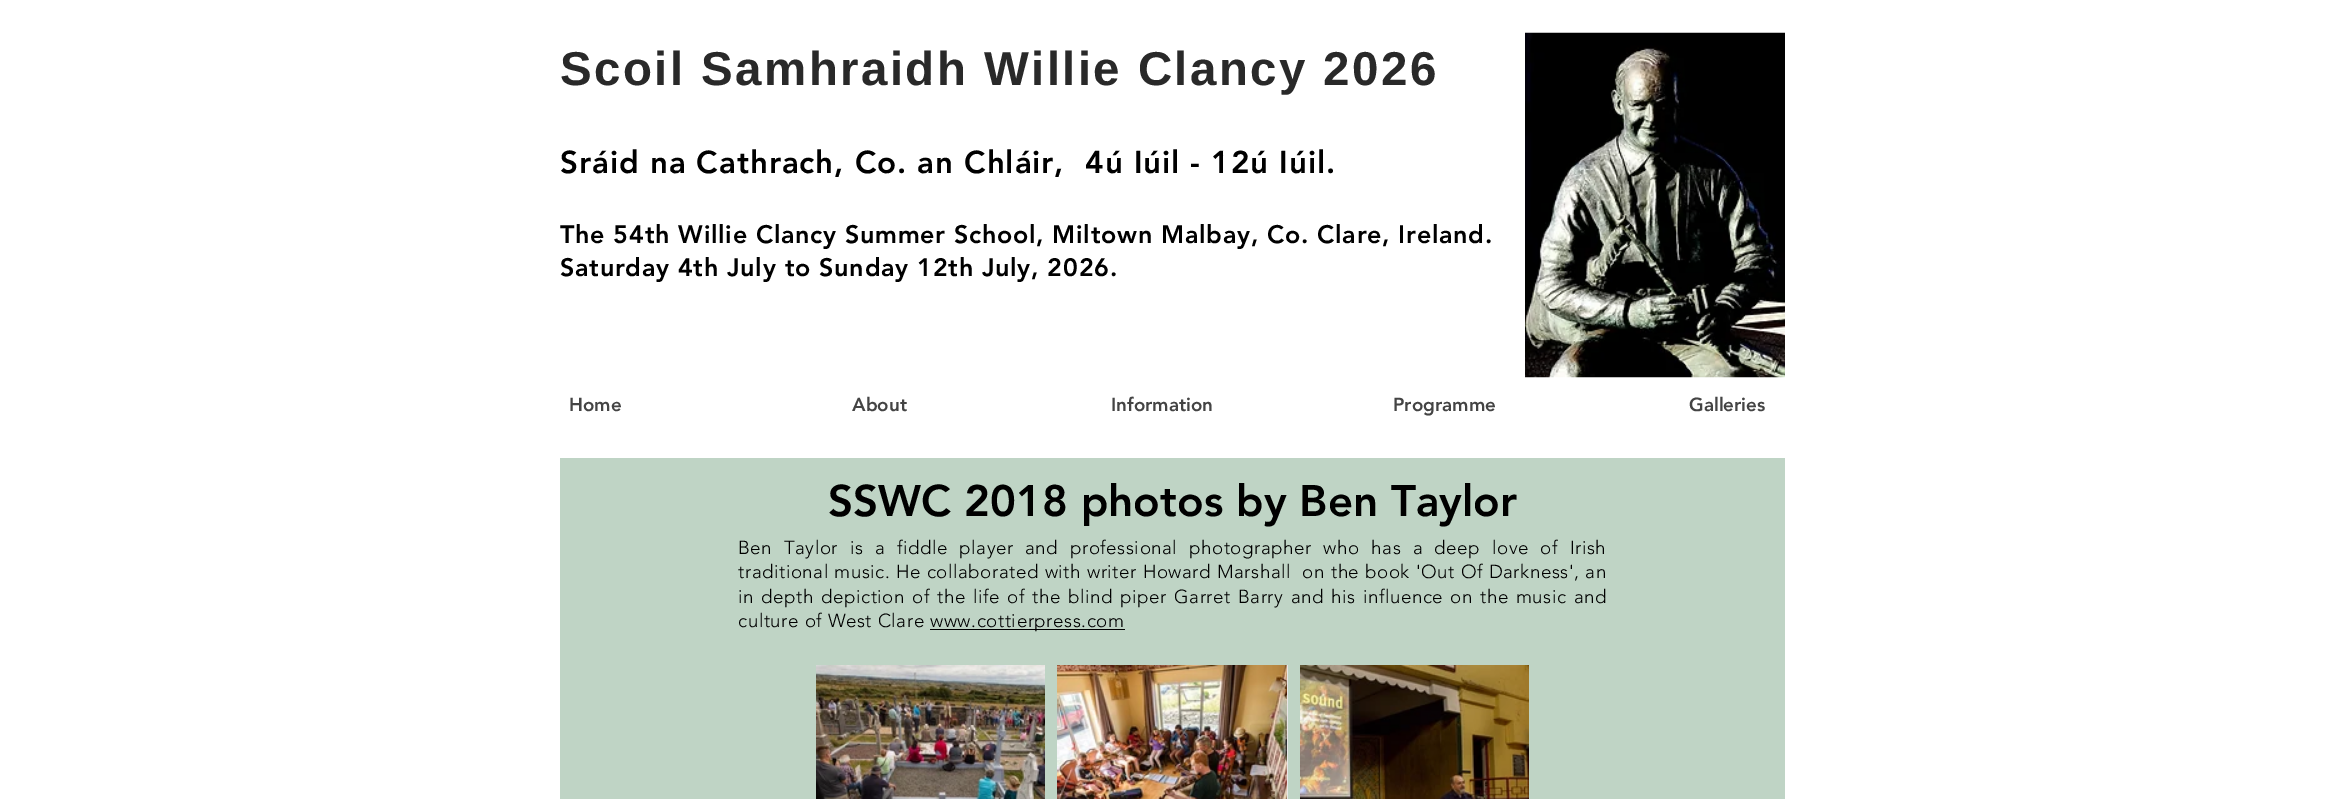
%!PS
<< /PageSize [2344 799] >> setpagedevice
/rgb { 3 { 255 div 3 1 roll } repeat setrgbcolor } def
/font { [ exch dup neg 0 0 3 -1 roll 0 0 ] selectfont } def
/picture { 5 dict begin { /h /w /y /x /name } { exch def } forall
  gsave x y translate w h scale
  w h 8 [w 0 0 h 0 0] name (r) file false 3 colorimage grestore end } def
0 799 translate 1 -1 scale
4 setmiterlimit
255 255 255 rgb
0 0 2344 799 rectfill
(img/1.rgb) 1525 32 260 346 picture
191 212 197 rgb
560 458 1225 341 rectfill
0 0 0 rgb
930 629 195 1 rectfill
(img/2.rgb) 816 665 229 134 picture
232 230 230 rgb
1287 665 1 134 rectfill
(img/3.rgb) 1057 665 230 134 picture
(img/4.rgb) 1300 665 229 134 picture
/LiberationSans-Bold 47.5 font
41 41 41 rgb
560 85 moveto 2.4 0 (Scoil Samhraidh Willie Clancy 2026) ashow
/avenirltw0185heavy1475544-Black 31.25 font
0 0 0 rgb
560 173 moveto 0.95 0 (Sráid na Cathrach, Co. an Chláir,  4ú Iúil - 12ú Iúil.) ashow
/avenirltw0185heavy1475544-Black 25 font
560 243 moveto 0.75 0 (The 54th Willie Clancy Summer School, Miltown Malbay, Co. Clare, Ireland.) ashow
560 276 moveto 0.75 0 (Saturday 4th July to Sunday 12th July, 2026.) ashow
/avenirltw0185heavy1475544-Black 18.75 font
68 68 68 rgb
[
  [(Home) 569 411]
  [(About) 852 411]
  [(Information) 1111 411]
  [(Programme) 1393 411]
  [(Galleries) 1689 411]
] { aload pop moveto show } forall
/avenirltw0185heavy1475544-Black 43.75 font
0 0 0 rgb
828 516 moveto (SSWC 2018 photos by Ben Taylor) show
/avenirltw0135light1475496-Light 18.75 font
738 554 moveto 6.1 0 32 0.55 0 (Ben Taylor is a fiddle player and professional photographer who has a deep love of Irish) awidthshow
738 578 moveto 0.25 0 32 0.55 0 (traditional music. He collaborated with writer Howard Marshall  on the book 'Out Of Darkness', an) awidthshow
738 603 moveto 1.7 0 32 0.55 0 (in depth depiction of the life of the blind piper Garret Barry and his influence on the music and) awidthshow
738 627 moveto 0.55 0 (culture of West Clare) ashow
930 627 moveto 0.55 0 (www.cottierpress.com) ashow
showpage
